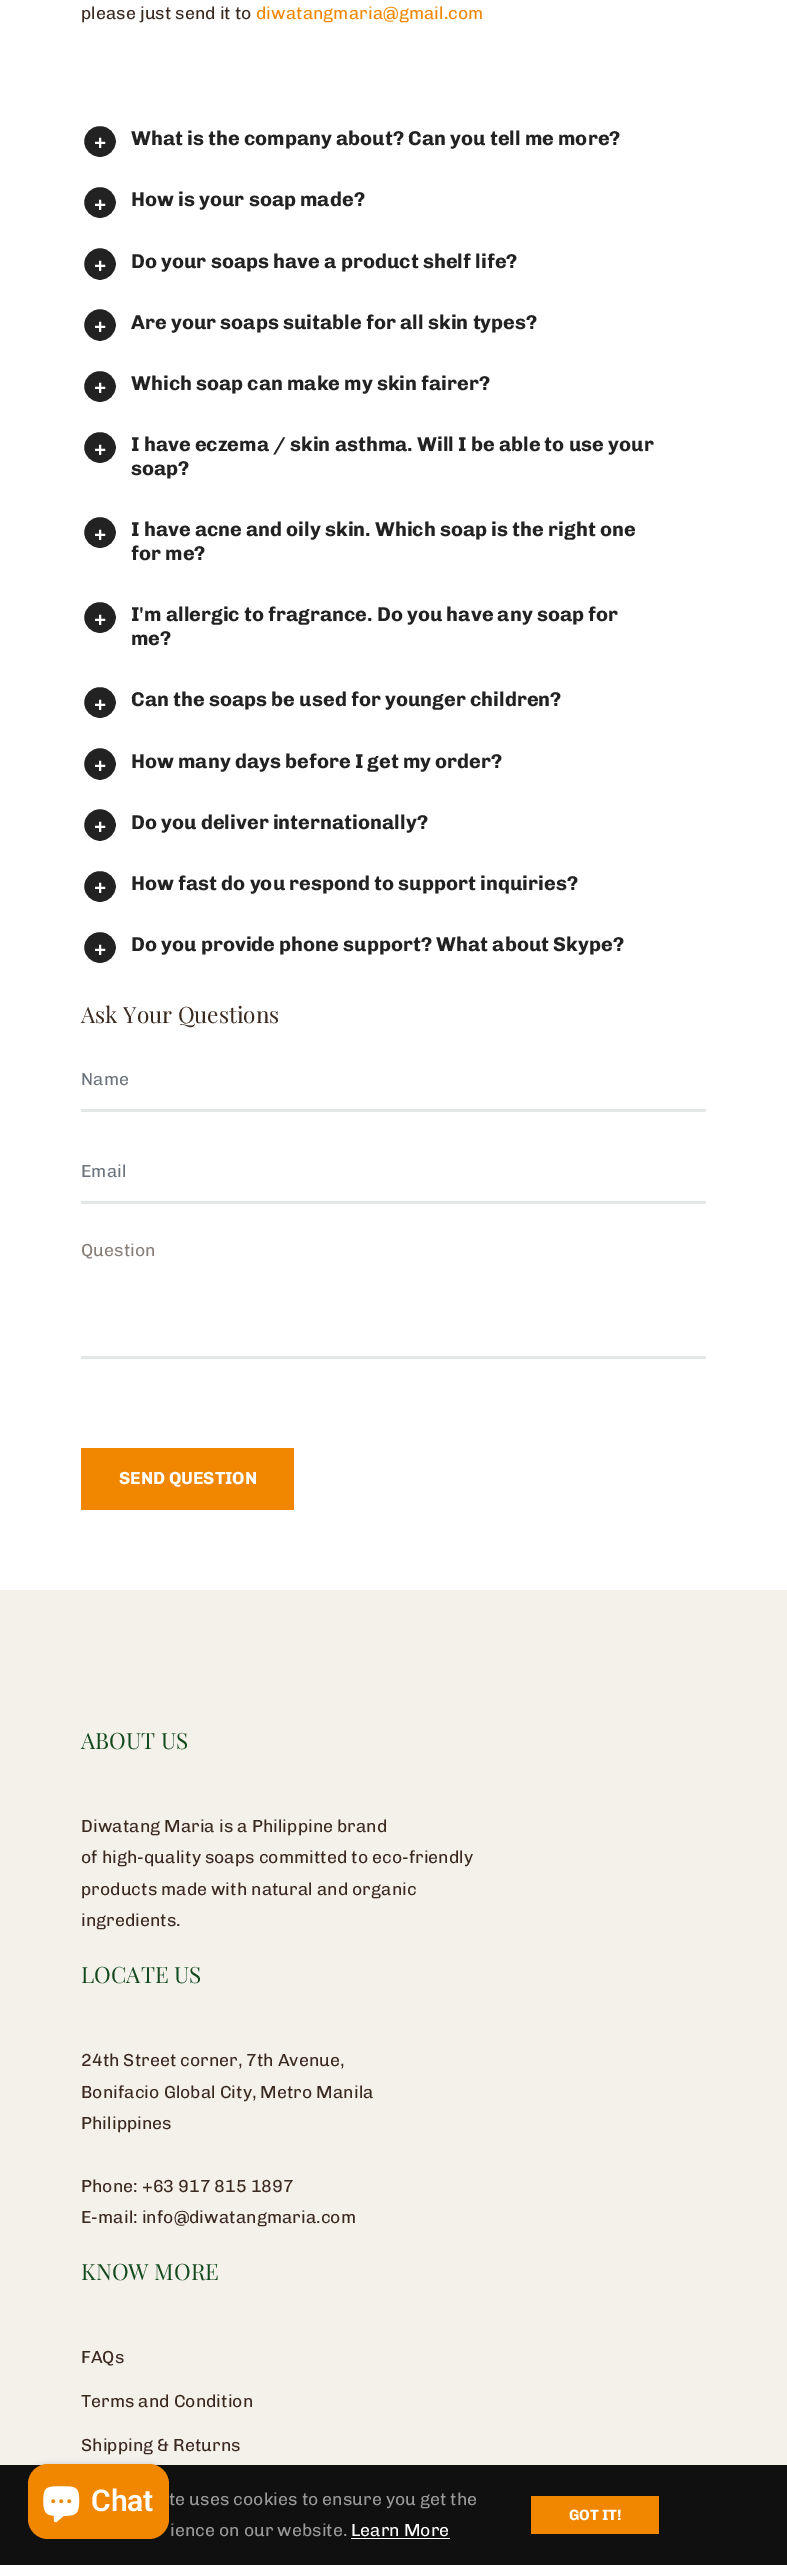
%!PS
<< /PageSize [787 2565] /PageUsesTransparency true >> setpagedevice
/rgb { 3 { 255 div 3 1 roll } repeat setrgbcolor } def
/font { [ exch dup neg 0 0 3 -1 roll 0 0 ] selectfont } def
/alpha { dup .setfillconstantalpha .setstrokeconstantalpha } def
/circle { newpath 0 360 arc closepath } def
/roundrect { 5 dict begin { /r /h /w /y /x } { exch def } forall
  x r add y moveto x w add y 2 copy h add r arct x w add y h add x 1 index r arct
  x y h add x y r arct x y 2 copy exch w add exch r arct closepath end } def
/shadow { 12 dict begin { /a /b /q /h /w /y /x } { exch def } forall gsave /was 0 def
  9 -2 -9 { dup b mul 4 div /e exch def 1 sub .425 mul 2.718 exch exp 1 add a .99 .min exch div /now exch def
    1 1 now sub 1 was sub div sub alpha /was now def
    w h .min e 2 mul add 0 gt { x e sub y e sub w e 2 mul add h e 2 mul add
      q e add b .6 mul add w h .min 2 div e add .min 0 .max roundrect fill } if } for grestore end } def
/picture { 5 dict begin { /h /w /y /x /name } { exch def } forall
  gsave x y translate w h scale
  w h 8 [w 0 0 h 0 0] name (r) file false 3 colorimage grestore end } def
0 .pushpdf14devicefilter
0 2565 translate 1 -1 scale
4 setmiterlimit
255 255 255 rgb
0 0 787 2565 rectfill
34 34 34 rgb
82.5 124.5 35 34 17 roundrect gsave fill grestore
255 255 255 rgb
3 setlinewidth
stroke
34 34 34 rgb
82.5 185.5 35 34 17 roundrect gsave fill grestore
255 255 255 rgb
stroke
34 34 34 rgb
100 264 17.5 circle gsave fill grestore
255 255 255 rgb
stroke
34 34 34 rgb
100 325 17.5 circle gsave fill grestore
255 255 255 rgb
stroke
34 34 34 rgb
82.5 369.5 35 34 17 roundrect gsave fill grestore
255 255 255 rgb
stroke
34 34 34 rgb
82.5 430.5 35 34 17 roundrect gsave fill grestore
255 255 255 rgb
stroke
34 34 34 rgb
82.5 515.5 35 34 17 roundrect gsave fill grestore
255 255 255 rgb
stroke
34 34 34 rgb
82.5 600.5 35 34 17 roundrect gsave fill grestore
255 255 255 rgb
stroke
34 34 34 rgb
82.5 685.5 35 34 17 roundrect gsave fill grestore
255 255 255 rgb
stroke
34 34 34 rgb
100 764 17.5 circle gsave fill grestore
255 255 255 rgb
stroke
34 34 34 rgb
100 825 17.5 circle gsave fill grestore
255 255 255 rgb
stroke
34 34 34 rgb
82.5 869.5 35 34 17 roundrect gsave fill grestore
255 255 255 rgb
stroke
34 34 34 rgb
82.5 930.5 35 34 17 roundrect gsave fill grestore
255 255 255 rgb
stroke
[
  [81 1109 625 3 227 231 232]
  [81 1201 625 3 227 231 232]
  [81 1356 625 3 227 231 232]
  [81 1448 213 62 241 135 0]
  [0 1590 787 875 244 241 235]
  [0 2465 787 100 16 16 16]
] { aload pop rgb rectfill } forall
0 0 0 rgb
28 2464 141 75 20 3 0.15 shadow
241 135 0 rgb
28 2464 141 75 20 roundrect fill
(img/1.rgb) 43 2486 37 37 picture
255 255 255 rgb
351 2538 99 1 rectfill
241 135 0 rgb
531 2496 128 38 rectfill
/Chivo-Regular 17.5 font
58 41 31 rgb
81 19 moveto (please just send it to) show
241 135 0 rgb
256 19 moveto (diwatangmaria@gmail.com) show
/Chivo-Bold 20 font
255 255 255 rgb
94 148 moveto (+) show
34 34 34 rgb
131 145 moveto (What is the company about? Can you tell me more?) show
255 255 255 rgb
94 210 moveto (+) show
34 34 34 rgb
131 206 moveto (How is your soap made?) show
255 255 255 rgb
94 271 moveto (+) show
34 34 34 rgb
131 268 moveto (Do your soaps have a product shelf life?) show
255 255 255 rgb
94 332 moveto (+) show
34 34 34 rgb
131 329 moveto (Are your soaps suitable for all skin types?) show
255 255 255 rgb
94 393 moveto (+) show
34 34 34 rgb
131 390 moveto (Which soap can make my skin fairer?) show
255 255 255 rgb
94 455 moveto (+) show
34 34 34 rgb
131 451 moveto (I have eczema / skin asthma. Will I be able to use your) show
131 475 moveto (soap?) show
255 255 255 rgb
94 540 moveto (+) show
34 34 34 rgb
131 536 moveto (I have acne and oily skin. Which soap is the right one) show
131 560 moveto (for me?) show
255 255 255 rgb
94 625 moveto (+) show
34 34 34 rgb
131 621 moveto (I'm allergic to fragrance. Do you have any soap for) show
131 645 moveto (me?) show
255 255 255 rgb
94 710 moveto (+) show
34 34 34 rgb
131 706 moveto (Can the soaps be used for younger children?) show
255 255 255 rgb
94 771 moveto (+) show
34 34 34 rgb
131 768 moveto (How many days before I get my order?) show
255 255 255 rgb
94 832 moveto (+) show
34 34 34 rgb
131 829 moveto (Do you deliver internationally?) show
255 255 255 rgb
94 893 moveto (+) show
34 34 34 rgb
131 890 moveto (How fast do you respond to support inquiries?) show
255 255 255 rgb
94 955 moveto (+) show
34 34 34 rgb
131 951 moveto (Do you provide phone support? What about Skype?) show
/PlayfairDisplay-Regular 22.5 font
58 41 31 rgb
81 1023 moveto (Ask Your Questions) show
/Chivo-Regular 17.5 font
108 117 125 rgb
81 1085 moveto (Name) show
81 1177 moveto (Email) show
137 127 121 rgb
81 1256 moveto (Question) show
/Chivo-Bold 17.5 font
255 255 255 rgb
119 1484 moveto (SEND QUESTION) show
/PlayfairDisplay-Regular 22.5 font
18 73 29 rgb
81 1749 moveto (ABOUT US) show
/Chivo-Regular 17.5 font
58 41 31 rgb
[
  [(Diwatang Maria is a Philippine brand) 81 1832]
  [(of high-quality soaps committed to eco-friendly) 81 1863]
  [(products made with natural and organic) 81 1895]
  [(ingredients.) 81 1926]
] { aload pop moveto show } forall
/PlayfairDisplay-Regular 22.5 font
18 73 29 rgb
81 1983 moveto (LOCATE US) show
/Chivo-Regular 17.5 font
58 41 31 rgb
[
  [(24th Street corner, 7th Avenue,) 81 2066]
  [(Bonifacio Global City, Metro Manila) 81 2098]
  [(Philippines) 81 2129]
  [(Phone: +63 917 815 1897) 81 2192]
  [(E-mail: info@diwatangmaria.com) 81 2223]
] { aload pop moveto show } forall
/PlayfairDisplay-Regular 22.5 font
18 73 29 rgb
81 2280 moveto (KNOW MORE) show
/Chivo-Regular 17.5 font
58 41 31 rgb
[
  [(FAQs) 81 2363]
  [(Terms and Condition) 81 2407]
  [(Shipping & Returns) 81 2451]
] { aload pop moveto show } forall
/Roboto-SemiBold 30 font
255 255 255 rgb
91 2511 moveto (Chat) show
/Chivo-Regular 17.5 font
153 153 153 rgb
169 2505 moveto (te uses cookies to ensure you get the) show
170 2536 moveto (ience on our website.) show
255 255 255 rgb
351 2536 moveto (Learn More) show
/Chivo-Bold 15 font
569 2520 moveto (GOT IT!) show
.poppdf14devicefilter showpage
